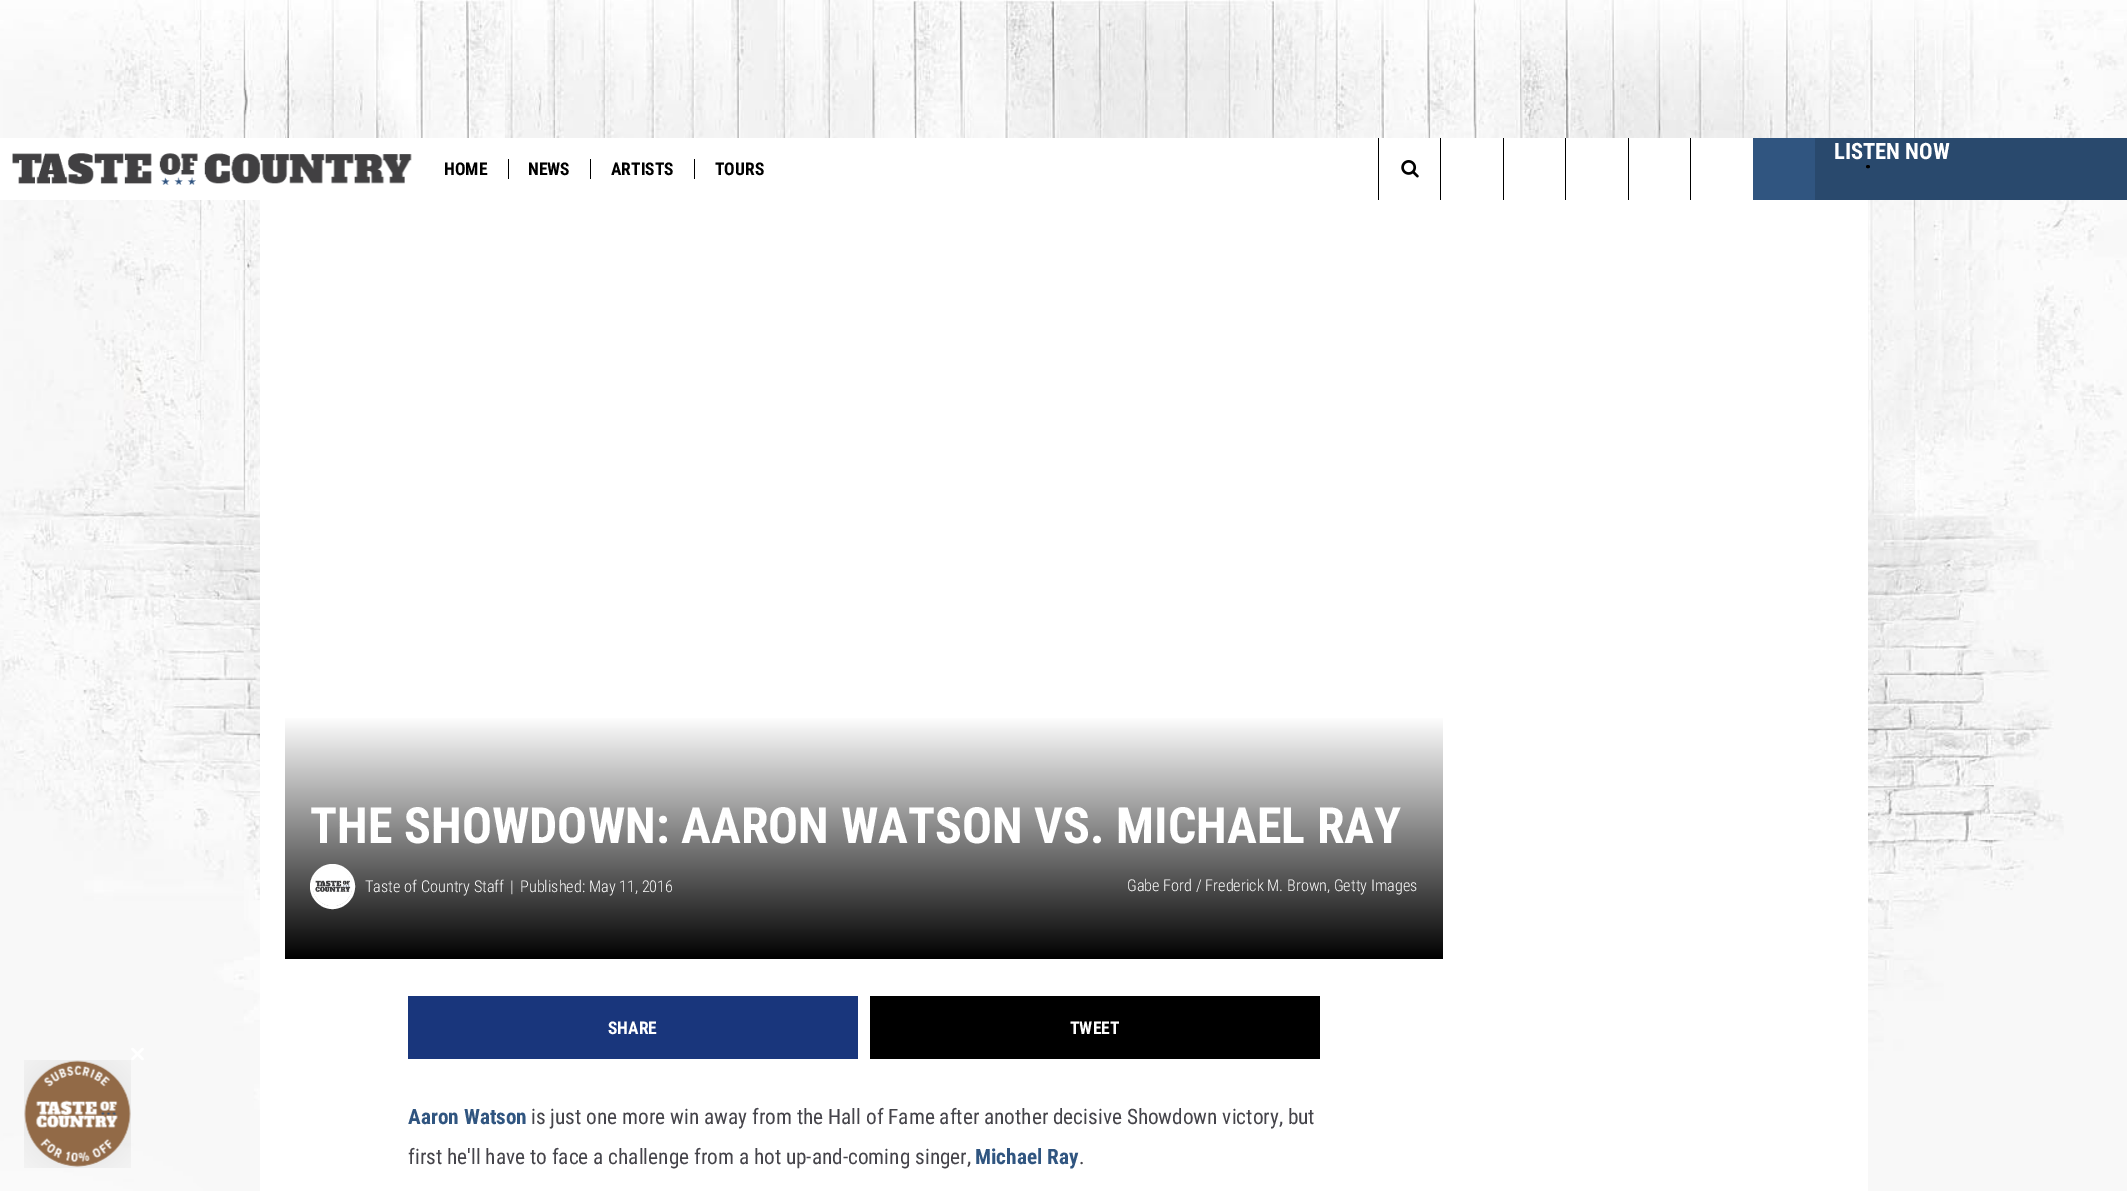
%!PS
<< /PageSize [2127 1191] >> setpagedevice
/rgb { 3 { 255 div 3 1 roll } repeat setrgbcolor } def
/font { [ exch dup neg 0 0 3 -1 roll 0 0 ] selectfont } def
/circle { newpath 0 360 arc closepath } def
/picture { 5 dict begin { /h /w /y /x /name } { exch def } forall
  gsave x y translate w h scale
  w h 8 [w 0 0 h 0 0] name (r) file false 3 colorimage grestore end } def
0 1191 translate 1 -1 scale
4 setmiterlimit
255 255 255 rgb
0 0 2127 1191 rectfill
(img/1.rgb) 0 200 2127 991 picture
2.5 setlinewidth
1 setlinecap
1 setlinejoin
132.5 1049 moveto 142.5 1059 lineto 132.5 1059 moveto 142.5 1049 lineto closepath stroke
(img/2.rgb) 24 1060 107 108 picture
(img/3.rgb) 0 0 2127 138 picture
(img/4.rgb) 12 153 400 32 picture
0 0 0 rgb
1378 138 1 62 rectfill
(img/5.rgb) 1401 160 18 18 picture
[
  [1440 138 1 62 0 0 0]
  [1503 138 1 62 0 0 0]
  [1565 138 1 62 0 0 0]
  [1628 138 1 62 0 0 0]
  [1690 138 1 62 0 0 0]
  [1753 138 62 62 48 85 128]
  [1815 138 312 62 41 73 109]
] { aload pop rgb rectfill } forall
0 0 0 rgb
3 setlinewidth
0 setlinejoin
1867.5 166.5 moveto 1868.5 166.5 lineto stroke
[
  [508 159 1 20 0 0 0]
  [590 159 1 20 0 0 0]
  [694 159 1 20 0 0 0]
  [260 200 1608 991 255 255 255]
] { aload pop rgb rectfill } forall
gsave 285 718 moveto 1443 718 lineto 1443 959 lineto 285 959 lineto closepath clip newpath
<< /ShadingType 2 /ColorSpace /DeviceRGB /Coords [864 716 864 959] /Extend [true true] /Function << /FunctionType 2 /Domain [0 1] /C0 [1 1 1] /C1 [0 0 0] /N 1 >> >> shfill grestore
0 setlinecap
332.5 886.5 21 circle stroke
(img/6.rgb) 313 867 39 39 picture
25 54 124 rgb
408 996 450 63 rectfill
0 0 0 rgb
870 996 450 63 rectfill
/RobotoCondensed-Bold 22.5 font
255 255 255 rgb
1834 159 moveto (LISTEN NOW) show
/RobotoCondensed-Bold 17.5 font
0 0 0 rgb
[
  [(HOME) 444 175]
  [(NEWS) 528 175]
  [(ARTISTS) 611 175]
  [(TOURS) 715 175]
] { aload pop moveto show } forall
/RobotoCondensed-Bold 50 font
255 255 255 rgb
310 843 moveto (THE SHOWDOWN: AARON WATSON VS. MICHAEL RAY) show
/RobotoCondensed-Light 16.25 font
[
  [(Taste of Country Staff) 365 892]
  [(|) 510 892]
  [(Published: May 11, 2016) 520 892]
  [(Gabe Ford / Frederick M. Brown, Getty Images) 1127 891]
] { aload pop moveto show } forall
/RobotoCondensed-Bold 17.5 font
608 1034 moveto (SHARE) show
1070 1034 moveto (TWEET) show
/RobotoCondensed-Bold 21.25 font
48 85 128 rgb
408 1124 moveto (Aaron Watson) show
/RobotoCondensed-Regular 21.25 font
69 68 74 rgb
531 1124 moveto (is just one more win away from the Hall of Fame after another decisive Showdown victory, but) show
408 1164 moveto (first he'll have to face a challenge from a hot up-and-coming singer,) show
/RobotoCondensed-Bold 21.25 font
48 85 128 rgb
975 1164 moveto (Michael Ray) show
/RobotoCondensed-Regular 21.25 font
69 68 74 rgb
1079 1164 moveto (.) show
showpage
